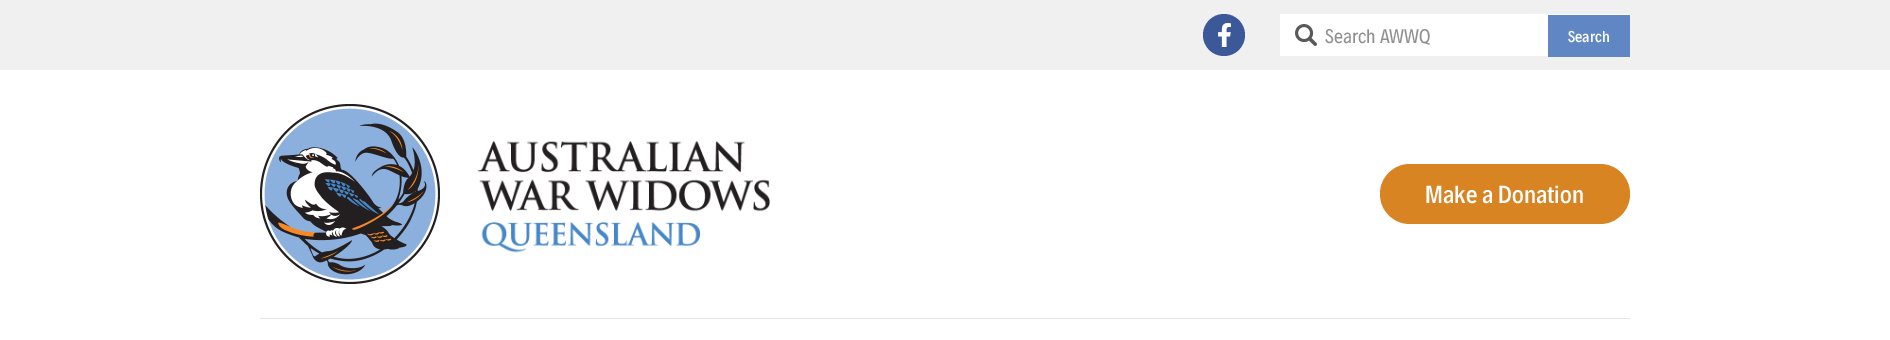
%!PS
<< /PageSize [1890 340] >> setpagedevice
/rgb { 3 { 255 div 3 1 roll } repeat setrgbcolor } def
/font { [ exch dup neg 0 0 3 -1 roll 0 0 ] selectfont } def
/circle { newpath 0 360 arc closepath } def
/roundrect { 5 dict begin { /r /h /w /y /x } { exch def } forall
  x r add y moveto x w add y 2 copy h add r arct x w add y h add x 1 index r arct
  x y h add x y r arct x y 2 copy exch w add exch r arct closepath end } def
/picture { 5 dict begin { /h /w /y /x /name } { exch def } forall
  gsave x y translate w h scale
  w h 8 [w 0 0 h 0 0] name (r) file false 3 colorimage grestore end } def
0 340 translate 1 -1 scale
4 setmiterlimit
255 255 255 rgb
0 0 1890 340 rectfill
240 240 240 rgb
0 0 1890 70 rectfill
59 89 152 rgb
1224 35 21 circle fill
(img/1.rgb) 1218 23 13 24 picture
255 255 255 rgb
1280 14 350 42 rectfill
(img/2.rgb) 1295 24 22 22 picture
96 135 196 rgb
1548 15 82 42 rectfill
(img/3.rgb) 260 104 180 180 picture
(img/4.rgb) 477 140 294 113 picture
216 132 35 rgb
1380 164 250 60 30 roundrect fill
230 230 230 rgb
260 318 1370 1 rectfill
/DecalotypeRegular-Regular 20 font
144 144 144 rgb
1325 43 moveto (Search AWWQ) show
/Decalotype-Medium 16 font
255 255 255 rgb
1568 42 moveto (Search) show
/Decalotype-Medium 25 font
1425 203 moveto (Make a Donation) show
showpage
